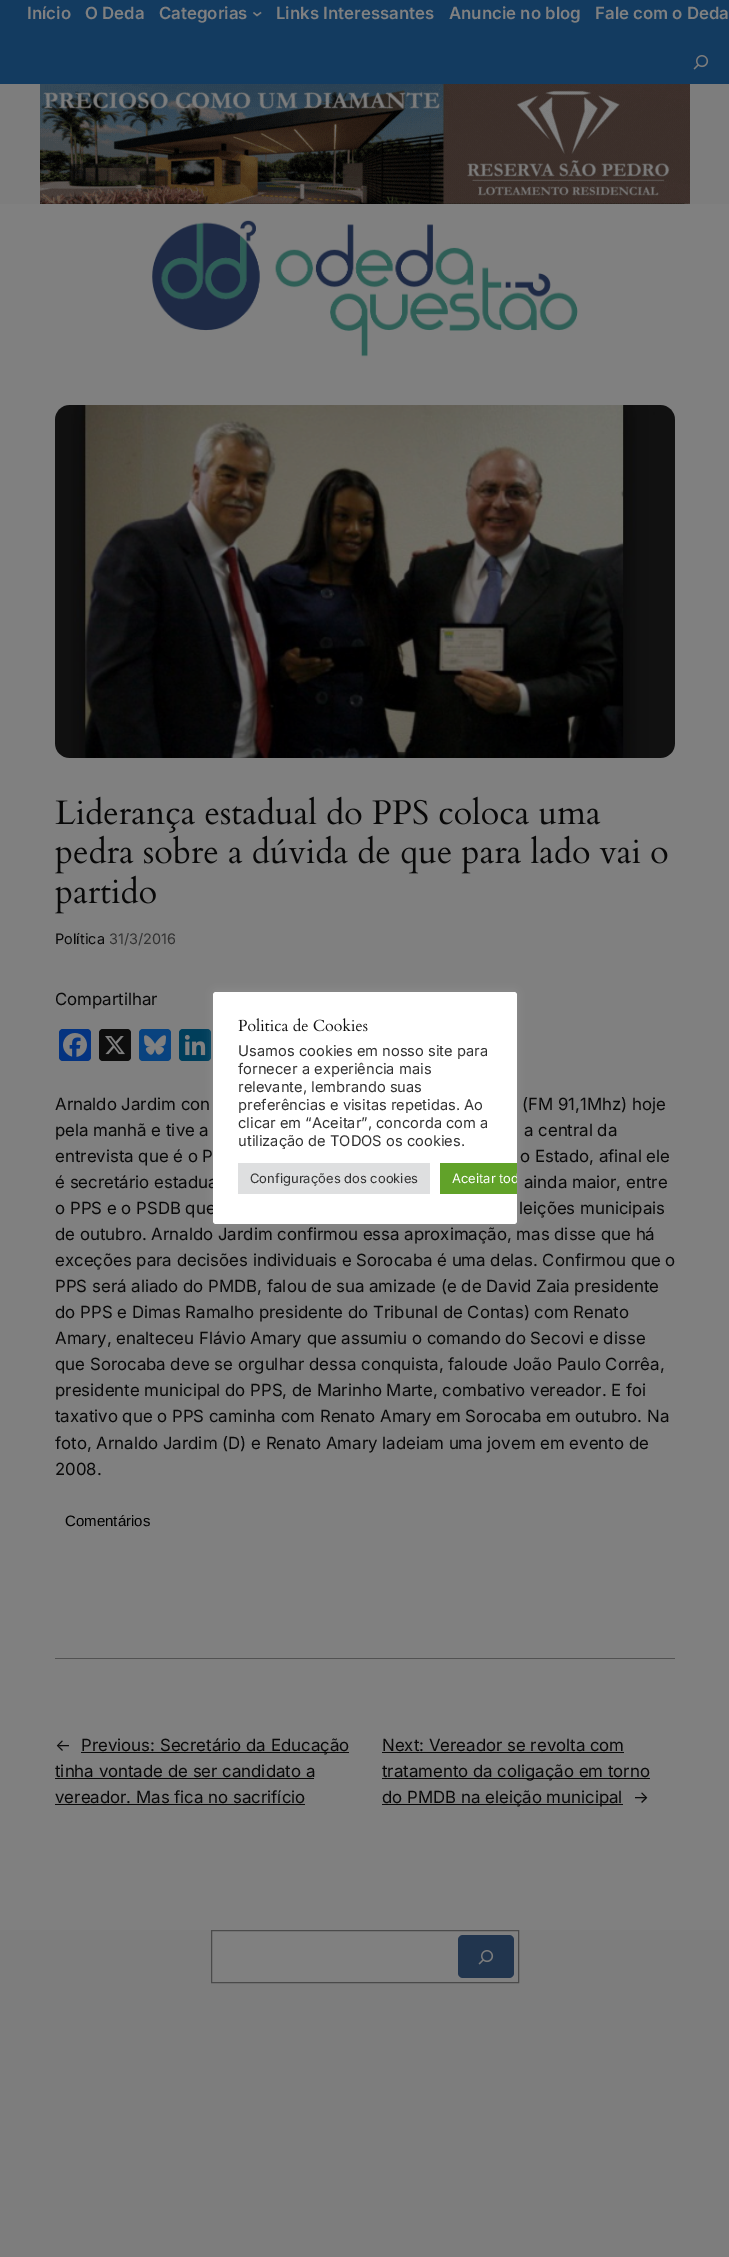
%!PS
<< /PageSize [729 2257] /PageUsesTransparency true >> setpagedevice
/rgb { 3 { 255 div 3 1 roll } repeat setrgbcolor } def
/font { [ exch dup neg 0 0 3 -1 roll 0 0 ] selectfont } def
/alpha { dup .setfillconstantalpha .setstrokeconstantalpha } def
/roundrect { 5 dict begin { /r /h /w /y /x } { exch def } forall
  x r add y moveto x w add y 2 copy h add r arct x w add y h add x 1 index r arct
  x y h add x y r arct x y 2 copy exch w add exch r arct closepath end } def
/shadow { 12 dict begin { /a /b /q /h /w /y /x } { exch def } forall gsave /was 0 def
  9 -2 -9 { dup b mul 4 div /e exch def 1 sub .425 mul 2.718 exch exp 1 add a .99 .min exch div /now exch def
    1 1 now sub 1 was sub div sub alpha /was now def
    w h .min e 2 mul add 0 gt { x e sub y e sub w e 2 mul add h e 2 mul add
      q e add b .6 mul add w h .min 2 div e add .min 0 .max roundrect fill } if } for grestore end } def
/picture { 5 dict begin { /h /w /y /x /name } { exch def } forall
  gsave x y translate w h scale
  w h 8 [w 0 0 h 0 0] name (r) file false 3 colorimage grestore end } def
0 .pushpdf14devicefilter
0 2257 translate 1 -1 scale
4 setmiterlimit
128 128 128 rgb
0 0 729 2257 rectfill
19 59 96 rgb
0 0 729 84 rectfill
128 128 128 rgb
1.3 setlinewidth
253.5 12.5 moveto 257 15.5 lineto 261 12.5 lineto stroke
(img/1.rgb) 693 55 16 15 picture
125 125 125 rgb
0 84 729 120 rectfill
(img/2.rgb) 40 84 650 120 picture
(img/3.rgb) 152 220 426 137 picture
(img/4.rgb) 55 405 620 353 picture
(img/5.rgb) 55 796 546 37 picture
(img/6.rgb) 55 835 613 39 picture
(img/7.rgb) 55 875 101 39 picture
4 51 128 rgb
59 1029 32 32 4 roundrect fill
(img/8.rgb) 63 1033 24 24 picture
13 13 13 rgb
99 1029 32 32 4 roundrect fill
(img/9.rgb) 105 1036 20 19 picture
9 67 127 rgb
139 1029 32 32 4 roundrect fill
(img/10.rgb) 144 1035 22 20 picture
0 62 91 rgb
179 1029 32 32 4 roundrect fill
(img/11.rgb) 184 1034 22 22 picture
[
  [55 1658 620 1 82 82 82]
  [81 1752 268 1 9 9 9]
  [55 1778 259 1 9 9 9]
  [55 1804 250 1 9 9 9]
  [382 1752 242 1 9 9 9]
  [382 1778 268 1 9 9 9]
  [382 1804 241 1 9 9 9]
  [0 1930 729 327 125 125 125]
] { aload pop rgb rectfill } forall
128 128 128 rgb
211.5 1930.5 moveto 518.5 1930.5 lineto 518.5 1982.5 lineto 211.5 1982.5 lineto closepath gsave fill grestore
74 74 74 rgb
1 setlinewidth
stroke
33 53 78 rgb
458 1935 56 43 5 roundrect fill
(img/12.rgb) 478 1950 16 15 picture
172 171 171 rgb
213 991 304 232 3 5 0.3 shadow
/Inter-SemiBold 16.8 font
128 128 128 rgb
[
  [(Início) 27 19]
  [(O Deda) 85 19]
  [(Categorias) 159 19]
  [(Links Interessantes) 276 19]
  [(Anuncie no blog) 449 19]
  [(Fale com o Deda) 595 19]
] { aload pop moveto show } forall
/Inter-Regular 14.5 font
9 9 9 rgb
55 944 moveto (Política) show
50 50 50 rgb
109 944 moveto (31/3/2016) show
/Inter-Regular 16.8 font
9 9 9 rgb
[
  [(Compartilhar) 55 1005]
  [(Arnaldo Jardim con) 55 1110]
  [(\(FM 91,1Mhz\) hoje) 522 1110]
  [(pela manhã e tive a) 55 1136]
  [(a central da) 524 1136]
  [(entrevista que é o P) 55 1162]
  [(o Estado, afinal ele) 520 1162]
  [(é secretário estadua) 55 1188]
  [(ainda maior, entre) 524 1188]
  [(o PPS e o PSDB que) 55 1214]
  [(leições municipais) 519 1214]
  [(de outubro. Arnaldo Jardim confirmou essa aproximação, mas disse que há) 55 1240]
  [(exceções para decisões individuais e Sorocaba é uma delas. Confirmou que o) 55 1266]
  [(PPS será aliado do PMDB, falou de sua amizade \(e de David Zaia presidente) 55 1292]
  [(do PPS e Dimas Ramalho presidente do Tribunal de Contas\) com Renato) 55 1318]
  [(Amary, enalteceu Flávio Amary que assumiu o comando do Secovi e disse) 55 1344]
  [(que Sorocaba deve se orgulhar dessa conquista, faloude João Paulo Corrêa,) 55 1370]
  [(presidente municipal do PPS, de Marinho Marte, combativo vereador. E foi) 55 1396]
  [(taxativo que o PPS caminha com Renato Amary em Sorocaba em outubro. Na) 55 1422]
  [(foto, Arnaldo Jardim \(D\) e Renato Amary ladeiam uma jovem em evento de) 55 1449]
  [(2008.) 55 1475]
] { aload pop moveto show } forall
/LiberationSans-Regular 15 font
0 0 0 rgb
65 1526 moveto (Comentários) show
/Inter-Regular 16.8 font
9 9 9 rgb
[
  [(←) 55 1751]
  [(Previous: Secretário da Educação) 81 1751]
  [(tinha vontade de ser candidato a) 55 1777]
  [(vereador. Mas fica no sacrifício) 55 1803]
  [(Next: Vereador se revolta com) 382 1751]
  [(tratamento da coligação em torno) 382 1777]
  [(do PMDB na eleição municipal) 382 1803]
  [(→) 633 1803]
] { aload pop moveto show } forall
255 255 255 rgb
213 992 304 232 3 roundrect fill
(img/13.rgb) 238 1018 130 14 picture
/Inter-Regular 14.7 font
50 50 50 rgb
[
  [(Usamos cookies em nosso site para) 238 1056]
  [(fornecer a experiência mais) 238 1074]
  [(relevante, lembrando suas) 238 1092]
  [(preferências e visitas repetidas. Ao) 238 1110]
  [(clicar em “Aceitar”, concorda com a) 238 1128]
  [(utilização de TODOS os cookies.) 238 1146]
] { aload pop moveto show } forall
222 223 224 rgb
238 1163 192 31 rectfill
/Inter-Regular 13 font
50 50 50 rgb
250 1183 moveto (Configurações dos cookies) show
97 162 41 rgb
440 1163 77 31 rectfill
gsave
213 992 304 232 3 roundrect clip newpath
255 255 255 rgb
452 1183 moveto (Aceitar tod) show
grestore
.poppdf14devicefilter showpage
